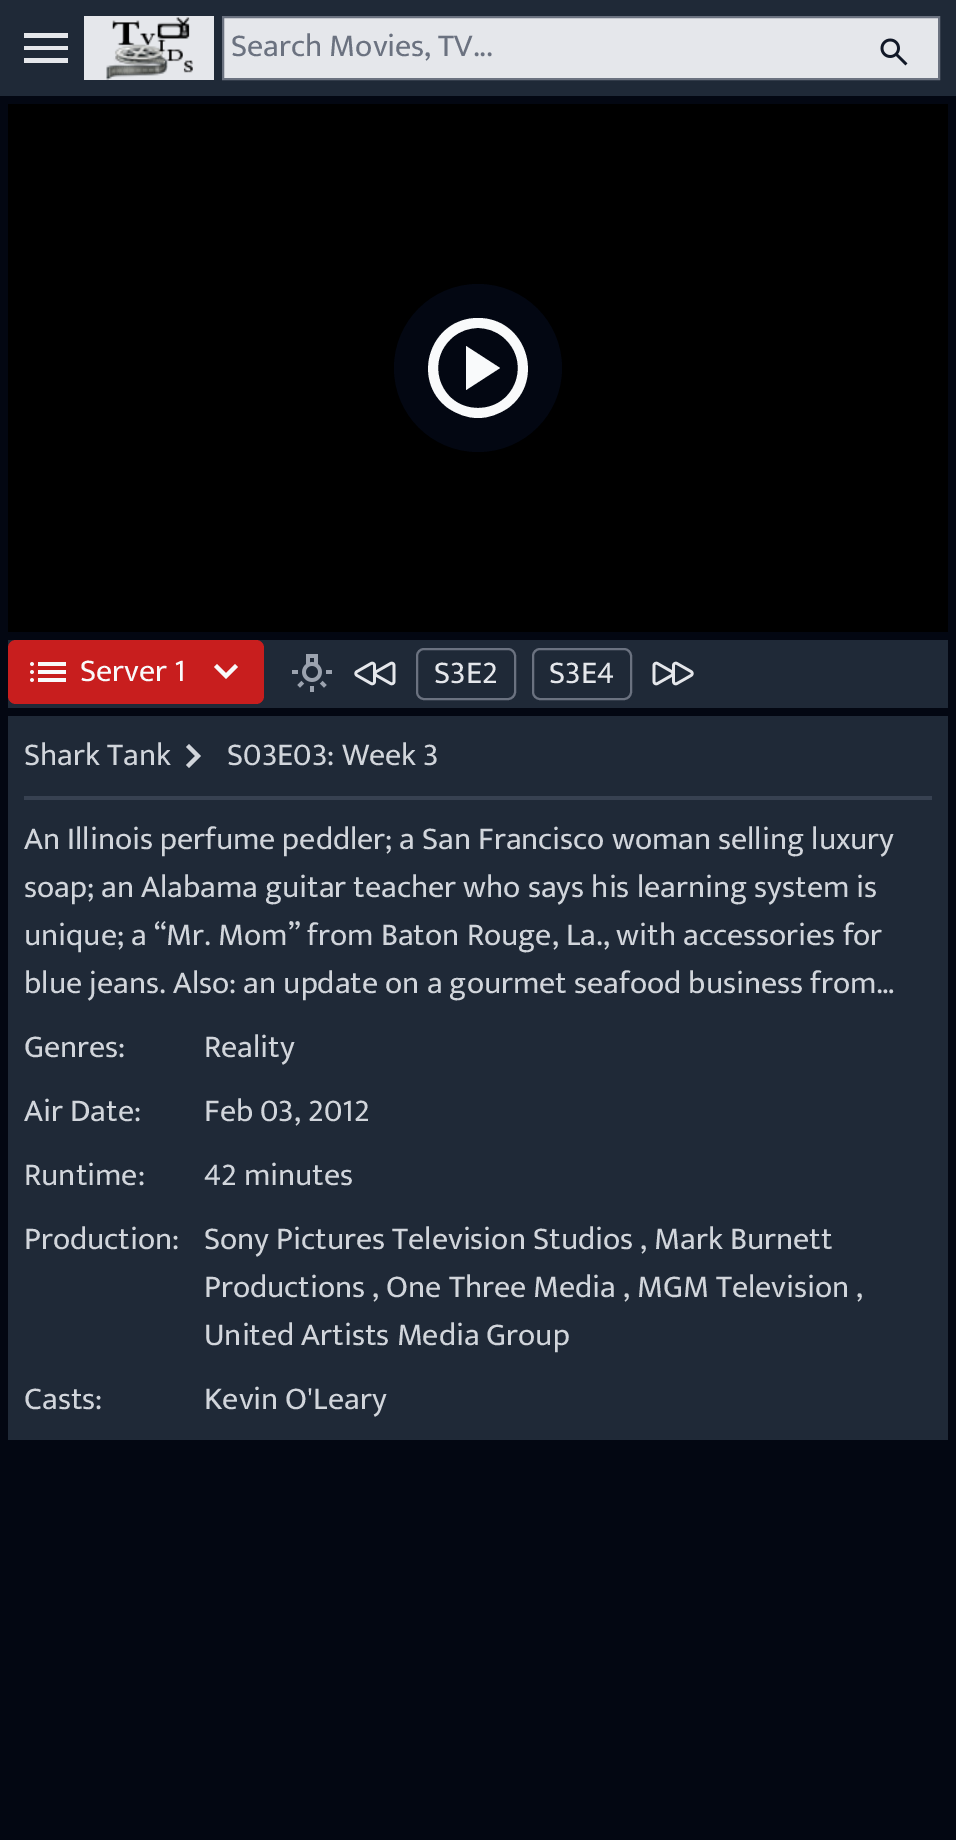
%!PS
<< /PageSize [956 1840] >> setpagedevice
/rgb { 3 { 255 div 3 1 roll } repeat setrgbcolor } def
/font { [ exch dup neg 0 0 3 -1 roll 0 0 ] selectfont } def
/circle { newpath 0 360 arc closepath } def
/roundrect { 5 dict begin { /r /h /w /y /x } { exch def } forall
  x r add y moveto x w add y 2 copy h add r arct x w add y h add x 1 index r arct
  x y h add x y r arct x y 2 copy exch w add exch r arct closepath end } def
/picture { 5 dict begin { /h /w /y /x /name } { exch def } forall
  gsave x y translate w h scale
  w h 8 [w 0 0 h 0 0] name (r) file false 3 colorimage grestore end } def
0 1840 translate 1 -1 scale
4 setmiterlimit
3 7 18 rgb
0 0 956 1840 rectfill
31 41 55 rgb
0 0 956 96 rectfill
229 231 235 rgb
24 63 moveto 24 58 lineto 68 58 lineto 68 63 lineto closepath 24 50 moveto 24 46 lineto 68 46 lineto 68 50 lineto closepath 24 38 moveto 24 33 lineto 68 33 lineto 68 38 lineto closepath fill
84 16 130 64 rectfill
(img/1.rgb) 106 17 87 63 picture
223 17 moveto 939 17 lineto 939 79 lineto 223 79 lineto closepath gsave fill grestore
107 114 128 rgb
2 setlinewidth
stroke
(img/2.rgb) 880 38 28 28 picture
0 0 0 rgb
8 104 940 528 rectfill
3 7 18 rgb
478 368 84 circle fill
249 250 251 rgb
466 390 moveto 500 368 lineto 466 346 lineto closepath 478 418 moveto 467 418 457 414 448 408 curveto 410 380 430 318 478 318 curveto 526 318 546 380 508 408 curveto 499 414 489 418 478 418 curveto closepath 478 408 moveto 516 408 532 361 503 337 curveto 496 331 487 328 478 328 curveto 469 328 460 331 453 337 curveto 424 361 440 408 478 408 curveto closepath 478 368 moveto closepath fill
31 41 55 rgb
8 640 940 68 rectfill
200 30 30 rgb
8 640 256 64 8 roundrect fill
(img/3.rgb) 30 662 36 20 picture
249 250 251 rgb
226 679 moveto 214 667 lineto 217 664 lineto 226 673 lineto 235 664 lineto 238 667 lineto closepath fill
(img/4.rgb) 292 654 40 38 picture
(img/5.rgb) 354 661 42 25 picture
107 114 128 rgb
417 649 98 50 7 roundrect stroke
533 649 98 50 7 roundrect stroke
(img/6.rgb) 652 661 42 25 picture
31 41 55 rgb
8 716 940 724 rectfill
209 213 219 rgb
195 756 moveto 186 747 lineto 189 744 lineto 201 756 lineto 189 768 lineto 186 765 lineto closepath fill
55 65 81 rgb
24 796 908 4 rectfill
/Mukta-Regular 32 font
107 114 128 rgb
231 56 moveto (Search Movies, TV...) show
249 250 251 rgb
80 681 moveto (Server 1) show
229 231 235 rgb
434 683 moveto (S3E2) show
549 683 moveto (S3E4) show
209 213 219 rgb
[
  [(Shark Tank) 24 765]
  [(S03E03: Week 3) 227 765]
  [(An Illinois perfume peddler; a San Francisco woman selling luxury) 24 849]
  [(soap; an Alabama guitar teacher who says his learning system is) 24 897]
  [(unique; a “Mr. Mom” from Baton Rouge, La., with accessories for) 24 945]
  [(blue jeans. Also: an update on a gourmet seafood business from…) 24 993]
  [(Genres:) 24 1057]
  [(Reality) 204 1057]
  [(Air Date:) 24 1121]
  [(Feb 03, 2012) 204 1121]
  [(Runtime:) 24 1185]
  [(42 minutes) 204 1185]
  [(Production:) 24 1249]
  [(Sony Pictures Television Studios , Mark Burnett) 204 1249]
  [(Productions , One Three Media , MGM Television ,) 204 1297]
  [(United Artists Media Group) 204 1345]
  [(Casts:) 24 1409]
  [(Kevin O'Leary) 204 1409]
] { aload pop moveto show } forall
showpage
